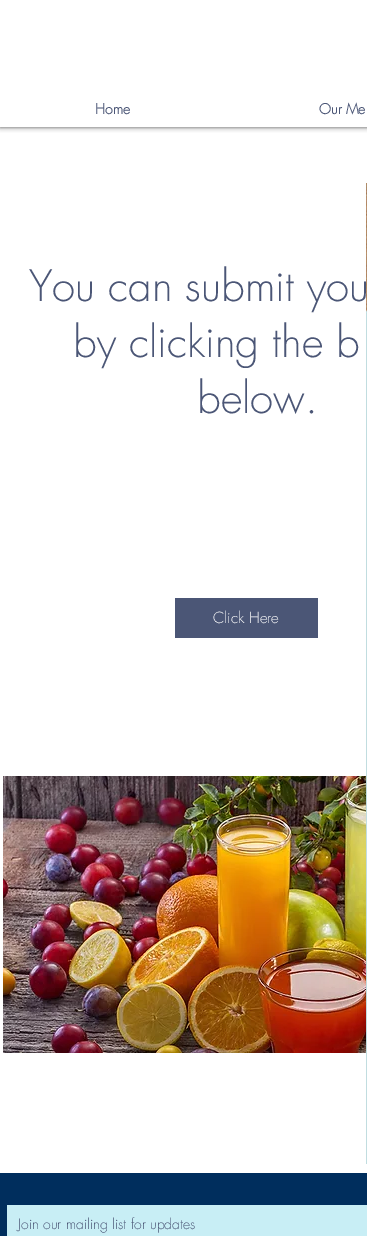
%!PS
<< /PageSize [367 1236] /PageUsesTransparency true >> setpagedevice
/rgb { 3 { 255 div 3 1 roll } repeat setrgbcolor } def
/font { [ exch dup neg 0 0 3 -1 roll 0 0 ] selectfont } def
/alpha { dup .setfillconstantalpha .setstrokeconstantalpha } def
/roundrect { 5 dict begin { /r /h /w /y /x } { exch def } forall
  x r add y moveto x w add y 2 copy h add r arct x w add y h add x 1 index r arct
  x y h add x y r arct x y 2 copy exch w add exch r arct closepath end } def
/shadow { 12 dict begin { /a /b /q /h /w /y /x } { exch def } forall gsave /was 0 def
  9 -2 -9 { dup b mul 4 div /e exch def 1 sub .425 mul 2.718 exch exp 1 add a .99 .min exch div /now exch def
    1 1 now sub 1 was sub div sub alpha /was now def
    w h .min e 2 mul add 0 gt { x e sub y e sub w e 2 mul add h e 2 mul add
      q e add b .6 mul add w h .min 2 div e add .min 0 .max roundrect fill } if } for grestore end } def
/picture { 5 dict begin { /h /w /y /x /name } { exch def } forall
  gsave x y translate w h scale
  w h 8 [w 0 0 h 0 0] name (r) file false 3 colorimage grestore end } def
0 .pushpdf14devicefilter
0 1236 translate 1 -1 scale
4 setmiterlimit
255 255 255 rgb
0 0 367 1236 rectfill
0 0 0 rgb
0 0 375 127 0 2.5 0.7 shadow
255 255 255 rgb
0 0 367 127 rectfill
75 86 118 rgb
175 598 143 40 rectfill
(img/1.rgb) 3 776 363 277 picture
(img/2.rgb) 366 183 1 981 picture
0 46 93 rgb
0 1173 367 63 rectfill
200 238 245 rgb
7 1205 360 31 rectfill
/futura-Bold 14 font
75 86 118 rgb
95 114 moveto (Home) show
319 114 moveto (Our Me) show
/futura-Light 42 font
[
  [(You can submit you) 29 301]
  [(by clicking the b) 73 357]
  [(below.) 197 413]
] { aload pop moveto show } forall
/futura-Light 15 font
255 255 255 rgb
213 623 moveto (Click Here) show
/futura-Light 14 font
75 86 118 rgb
18 1229 moveto (Join our mailing list for updates) show
.poppdf14devicefilter showpage
